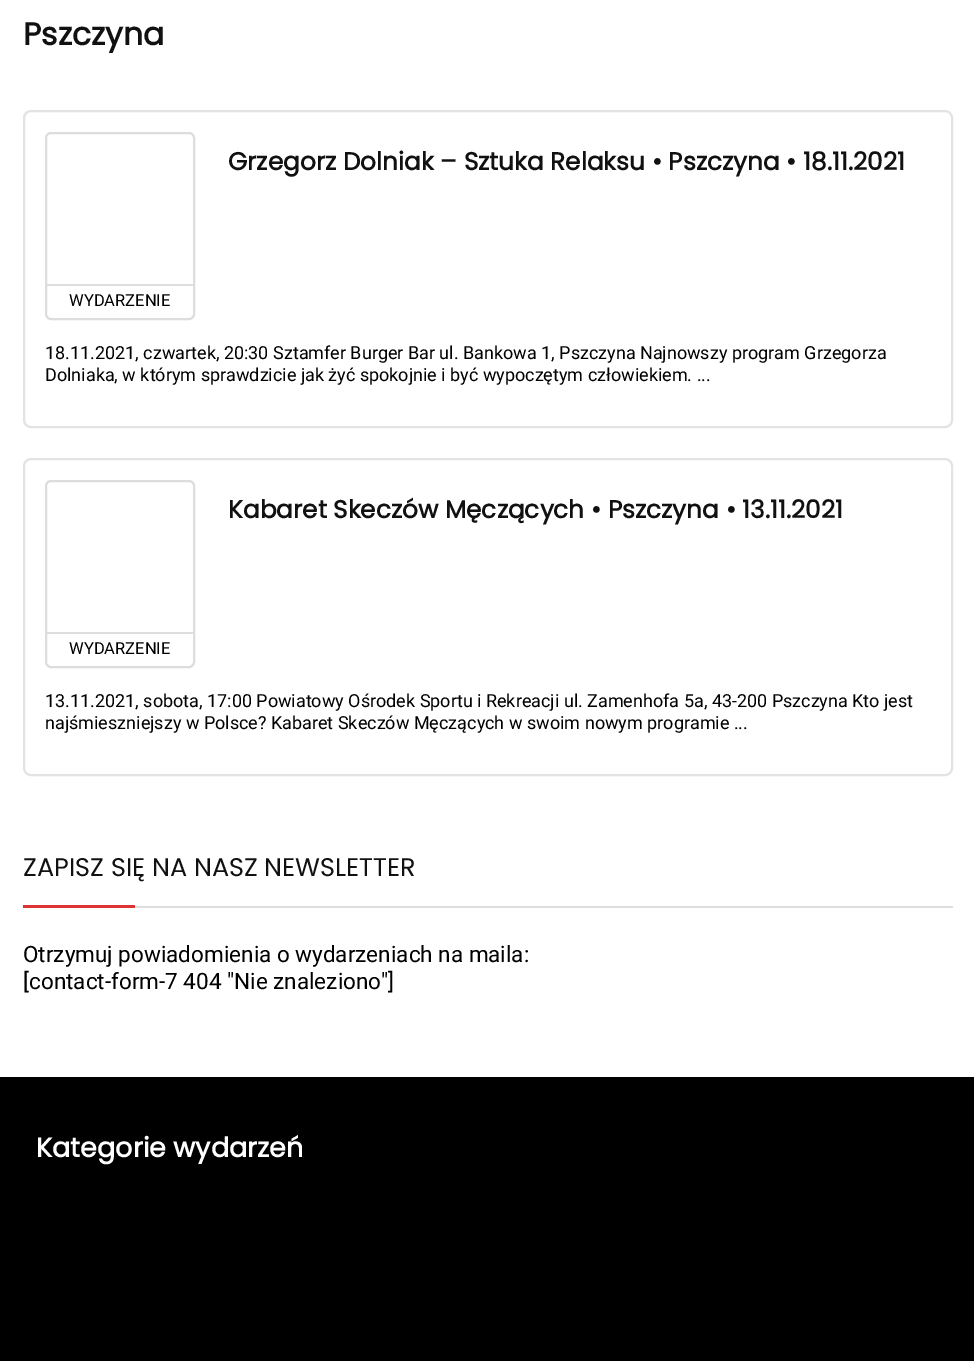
%!PS
<< /PageSize [974 1361] >> setpagedevice
/rgb { 3 { 255 div 3 1 roll } repeat setrgbcolor } def
/font { [ exch dup neg 0 0 3 -1 roll 0 0 ] selectfont } def
/roundrect { 5 dict begin { /r /h /w /y /x } { exch def } forall
  x r add y moveto x w add y 2 copy h add r arct x w add y h add x 1 index r arct
  x y h add x y r arct x y 2 copy exch w add exch r arct closepath end } def
0 1361 translate 1 -1 scale
4 setmiterlimit
255 255 255 rgb
0 0 974 1361 rectfill
227 227 227 rgb
2 setlinewidth
24 111 928 316 7 roundrect stroke
221 221 221 rgb
46 133 148 186 5 roundrect stroke
47 284 147 2 rectfill
227 227 227 rgb
24 459 928 316 7 roundrect stroke
221 221 221 rgb
46 481 148 186 5 roundrect stroke
[
  [47 632 147 2 221 221 221]
  [135 906 818 2 221 221 221]
  [23 905 112 3 221 51 51]
  [0 1077 974 284 0 0 0]
] { aload pop rgb rectfill } forall
/Poppins-Bold 31.5 font
17 17 17 rgb
23 45 moveto (Pszczyna) show
/Poppins-Bold 24.75 font
228 170 moveto (Grzegorz Dolniak – Sztuka Relaksu • Pszczyna • 18.11.2021) show
/Roboto-Regular 16.5 font
0 0 0 rgb
69 306 moveto (WYDARZENIE) show
/Roboto-Regular 18 font
45 359 moveto (18.11.2021, czwartek, 20:30 Sztamfer Burger Bar ul. Bankowa 1, Pszczyna Najnowszy program Grzegorza) show
45 381 moveto (Dolniaka, w którym sprawdzicie jak żyć spokojnie i być wypoczętym człowiekiem. ...) show
/Poppins-Bold 24.75 font
17 17 17 rgb
228 518 moveto (Kabaret Skeczów Męczących • Pszczyna • 13.11.2021) show
/Roboto-Regular 16.5 font
0 0 0 rgb
69 654 moveto (WYDARZENIE) show
/Roboto-Regular 18 font
45 707 moveto (13.11.2021, sobota, 17:00 Powiatowy Ośrodek Sportu i Rekreacji ul. Zamenhofa 5a, 43-200 Pszczyna Kto jest) show
45 729 moveto (najśmieszniejszy w Polsce? Kabaret Skeczów Męczących w swoim nowym programie ...) show
/Poppins-Regular 25.5 font
17 17 17 rgb
23 876 moveto (ZAPISZ SIĘ NA NASZ NEWSLETTER) show
/Roboto-Regular 22.5 font
0 0 0 rgb
23 962 moveto (Otrzymuj powiadomienia o wydarzeniach na maila:) show
23 989 moveto ([contact-form-7 404 "Nie znaleziono"]) show
/Poppins-Bold 27 font
255 255 255 rgb
36 1157 moveto (Kategorie wydarzeń) show
showpage
